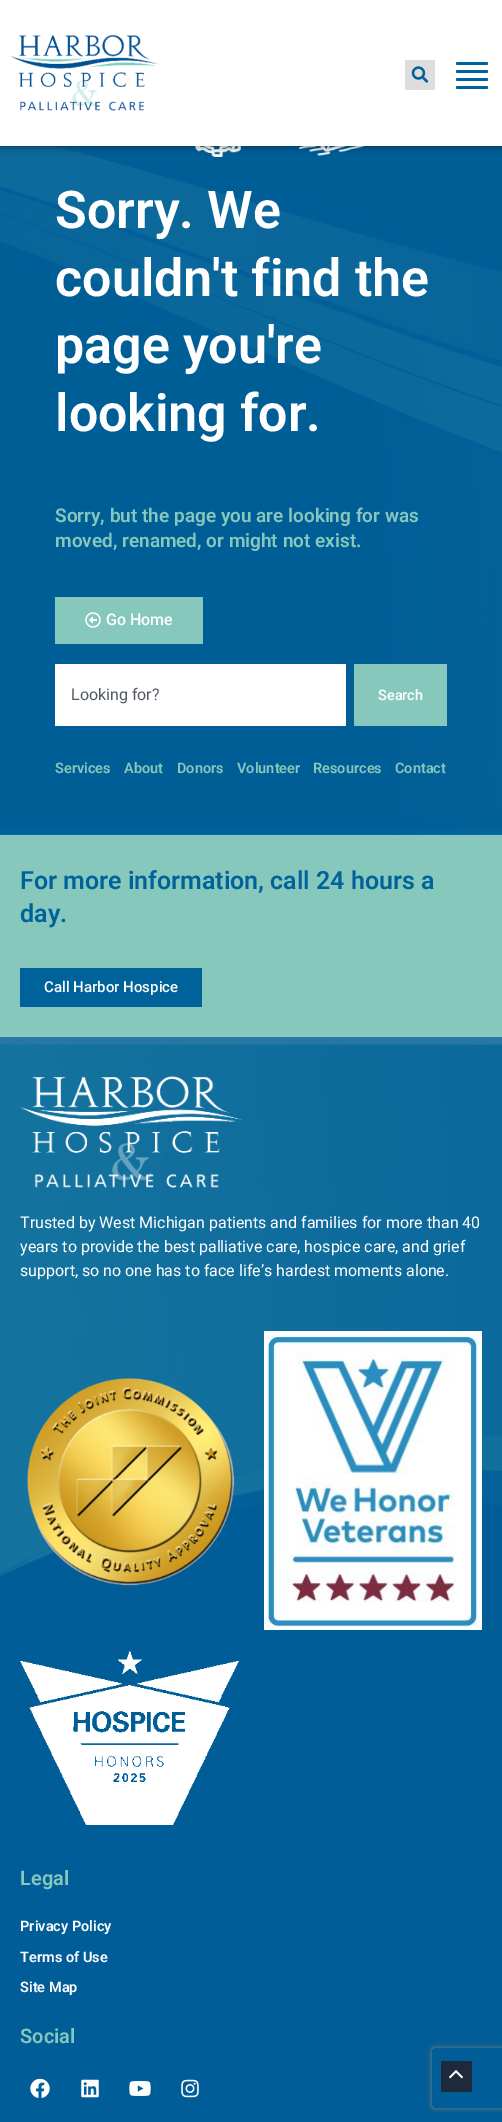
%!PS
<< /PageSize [502 2122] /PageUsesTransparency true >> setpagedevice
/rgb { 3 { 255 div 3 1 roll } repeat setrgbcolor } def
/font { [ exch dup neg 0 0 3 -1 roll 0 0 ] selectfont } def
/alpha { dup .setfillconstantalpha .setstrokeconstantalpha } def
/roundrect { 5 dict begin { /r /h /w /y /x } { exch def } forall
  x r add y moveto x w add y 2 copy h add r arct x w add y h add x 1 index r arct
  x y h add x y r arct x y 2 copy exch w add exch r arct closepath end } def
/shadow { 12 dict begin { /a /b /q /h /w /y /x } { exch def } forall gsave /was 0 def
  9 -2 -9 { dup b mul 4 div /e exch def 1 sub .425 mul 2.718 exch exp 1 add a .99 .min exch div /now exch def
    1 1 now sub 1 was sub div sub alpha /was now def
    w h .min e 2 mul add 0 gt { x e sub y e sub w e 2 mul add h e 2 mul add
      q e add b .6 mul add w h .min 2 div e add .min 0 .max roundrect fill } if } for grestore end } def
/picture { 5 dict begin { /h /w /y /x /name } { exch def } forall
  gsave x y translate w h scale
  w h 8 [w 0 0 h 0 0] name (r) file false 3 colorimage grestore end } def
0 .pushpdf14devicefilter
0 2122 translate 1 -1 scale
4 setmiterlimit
0 98 155 rgb
0 0 502 2122 rectfill
(img/3.rgb) 0 146 502 689 picture
(img/4.rgb) 195 146 170 11 picture
0 0 0 rgb
0 0 502 146 0 5 0.5 shadow
255 255 255 rgb
0 0 502 146 rectfill
(img/1.rgb) 10 34 150 77 picture
221 221 221 rgb
405 60 30 30 rectfill
(img/2.rgb) 411 66 18 17 picture
0 98 155 rgb
456 62 32 3 1.5 roundrect fill
456 70 32 3 1.5 roundrect fill
456 78 32 3 1.5 roundrect fill
456 86 32 3 1.5 roundrect fill
134 200 188 rgb
55 597 148 47 rectfill
(img/5.rgb) 85 612 16 16 picture
[
  [55 664 291 62 255 255 255]
  [354 664 93 62 134 200 188]
  [0 835 502 202 134 200 188]
  [20 968 182 39 0 98 155]
] { aload pop rgb rectfill } forall
(img/6.rgb) 0 1037 502 1085 picture
(img/7.rgb) 20 1076 222 112 picture
(img/8.rgb) 27 1378 208 208 picture
(img/9.rgb) 264 1331 218 299 picture
(img/10.rgb) 20 1650 219 175 picture
(img/11.rgb) 30 2078 20 20 picture
(img/12.rgb) 81 2079 18 19 picture
(img/13.rgb) 129 2081 22 15 picture
(img/14.rgb) 181 2079 18 19 picture
gsave
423 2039 moveto 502 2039 lineto 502 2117 lineto 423 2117 lineto closepath 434 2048 moveto 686 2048 lineto 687 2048 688 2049 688 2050 curveto 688 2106 lineto 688 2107 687 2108 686 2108 curveto 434 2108 lineto 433 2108 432 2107 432 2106 curveto 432 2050 lineto 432 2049 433 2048 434 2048 curveto closepath eoclip newpath
128 128 128 rgb
432 2048 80 60 2 2.5 1 shadow
grestore
30 41 59 rgb
441 2061 31 31 2 roundrect fill
(img/15.rgb) 449 2070 15 9 picture
/Roboto-SemiBold 52 font
255 255 255 rgb
[
  [(Sorry. We) 55 228]
  [(couldn't find the) 55 296]
  [(page you're) 55 363]
  [(looking for.) 55 431]
] { aload pop moveto show } forall
/Roboto-SemiBold 19 font
134 200 188 rgb
55 522 moveto (Sorry, but the page you are looking for was) show
55 547 moveto (moved, renamed, or might not exist.) show
/Roboto-Medium 16 font
255 255 255 rgb
106 625 moveto (Go Home) show
/Roboto-Regular 16 font
81 89 98 rgb
71 700 moveto (Looking for?) show
/Roboto-Medium 14.5 font
255 255 255 rgb
378 700 moveto (Search) show
/Roboto-SemiBold 14.5 font
134 200 188 rgb
[
  [(Services) 55 773]
  [(About) 124 773]
  [(Donors) 177 773]
  [(Volunteer) 237 773]
  [(Resources) 313 773]
  [(Contact) 395 773]
] { aload pop moveto show } forall
/Roboto-SemiBold 25 font
0 98 155 rgb
20 889 moveto (For more information, call 24 hours a) show
20 922 moveto (day.) show
/Roboto-Medium 15 font
255 255 255 rgb
44 992 moveto (Call Harbor Hospice) show
/Roboto-Regular 16 font
[
  [(Trusted by West Michigan patients and families for more than 40) 20 1228]
  [(years to provide the best palliative care, hospice care, and grief) 20 1252]
  [(support, so no one has to face life’s hardest moments alone.) 20 1276]
] { aload pop moveto show } forall
/Roboto-SemiBold 20 font
134 200 188 rgb
20 1885 moveto (Legal) show
/Roboto-SemiBold 14.5 font
255 255 255 rgb
[
  [(Privacy Policy) 20 1931]
  [(Terms of Use) 20 1962]
  [(Site Map) 20 1992]
] { aload pop moveto show } forall
/Roboto-SemiBold 20 font
134 200 188 rgb
20 2043 moveto (Social) show
.poppdf14devicefilter showpage
